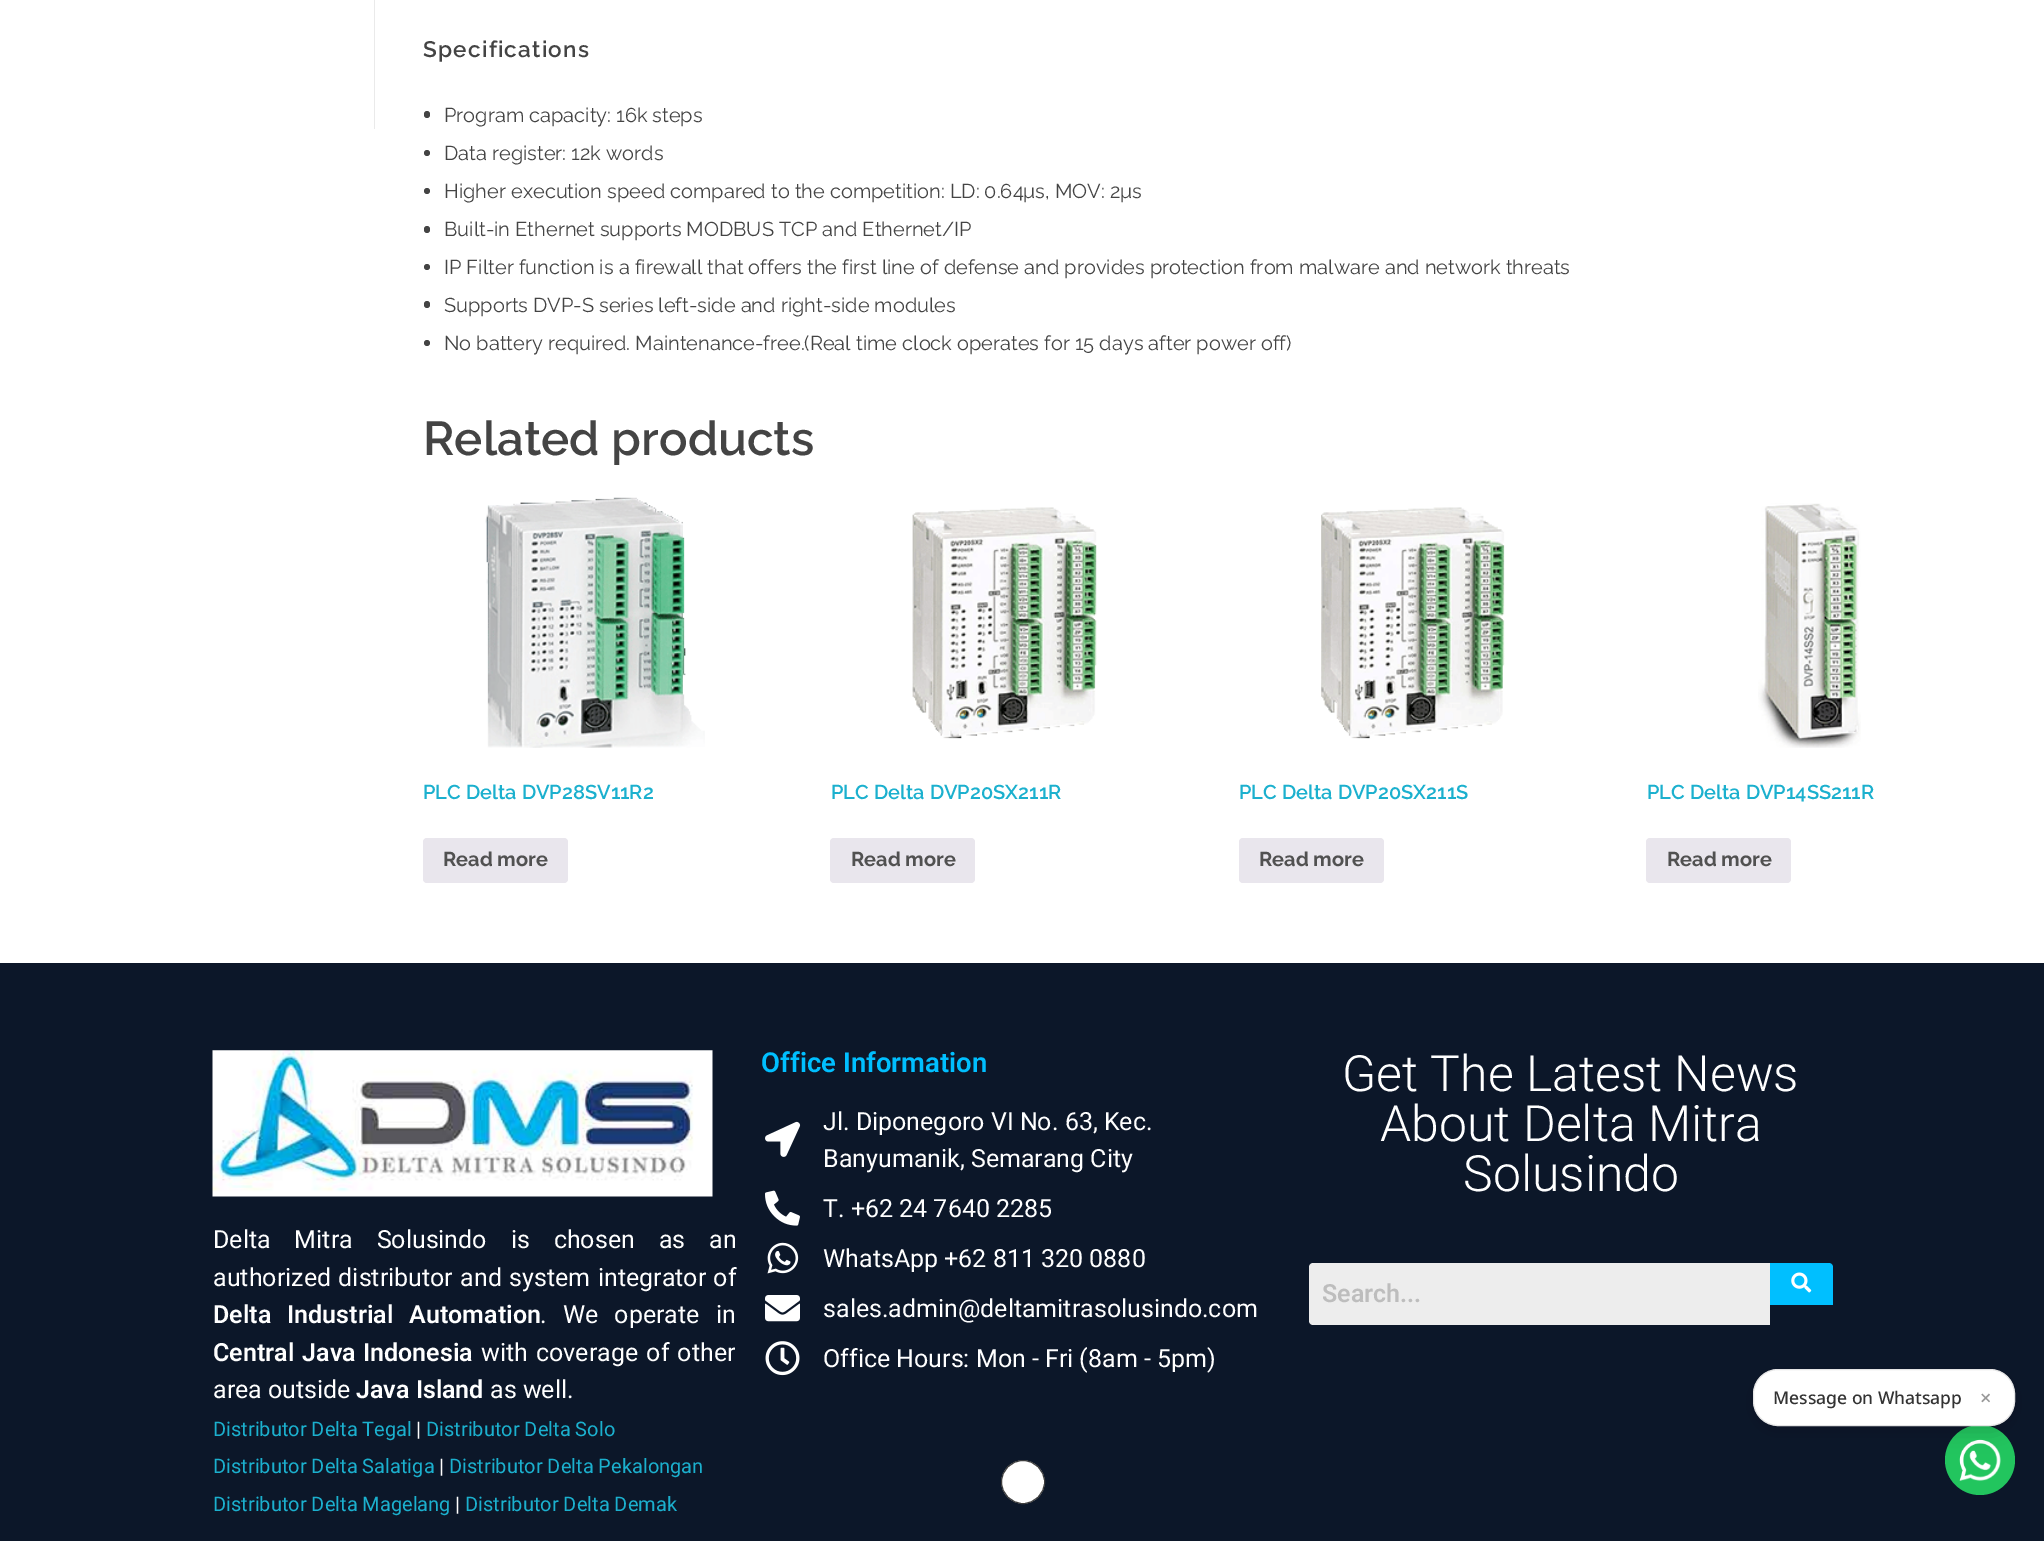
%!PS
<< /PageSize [2044 1541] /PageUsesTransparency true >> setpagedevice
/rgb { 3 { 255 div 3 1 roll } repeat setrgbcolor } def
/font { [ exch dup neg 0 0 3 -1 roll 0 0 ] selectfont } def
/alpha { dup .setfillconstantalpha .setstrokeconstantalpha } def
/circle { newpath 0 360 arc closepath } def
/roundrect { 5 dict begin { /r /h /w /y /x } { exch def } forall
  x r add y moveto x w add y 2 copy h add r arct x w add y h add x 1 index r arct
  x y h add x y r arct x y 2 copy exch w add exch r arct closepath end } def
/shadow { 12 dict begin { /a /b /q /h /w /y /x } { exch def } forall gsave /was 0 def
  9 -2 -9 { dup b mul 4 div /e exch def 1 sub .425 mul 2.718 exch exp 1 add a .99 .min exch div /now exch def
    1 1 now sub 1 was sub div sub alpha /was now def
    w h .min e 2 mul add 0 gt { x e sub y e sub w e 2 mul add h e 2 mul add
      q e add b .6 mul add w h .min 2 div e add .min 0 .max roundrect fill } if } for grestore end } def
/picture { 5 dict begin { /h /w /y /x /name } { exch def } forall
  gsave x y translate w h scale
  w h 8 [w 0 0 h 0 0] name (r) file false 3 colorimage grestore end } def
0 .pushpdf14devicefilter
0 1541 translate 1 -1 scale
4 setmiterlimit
255 255 255 rgb
0 0 2044 1541 rectfill
234 234 234 rgb
374 0 1 129 rectfill
68 68 68 rgb
424 111 6 7 3 roundrect fill
427 153 3 circle fill
427 191 3 circle fill
424 226 6 7 3 roundrect fill
427 267 3 circle fill
424 301 6 7 3 roundrect fill
427 343 3 circle fill
(img/1.rgb) 485 497 220 251 picture
233 230 237 rgb
423 838 145 45 4 roundrect fill
(img/2.rgb) 912 507 185 232 picture
830 838 145 45 4 roundrect fill
(img/3.rgb) 1321 507 184 232 picture
1239 838 145 45 4 roundrect fill
(img/4.rgb) 1758 503 103 245 picture
1646 838 145 45 4 roundrect fill
12 23 41 rgb
0 963 2044 578 rectfill
(img/5.rgb) 765 1121 36 36 picture
(img/6.rgb) 765 1190 35 36 picture
(img/7.rgb) 767 1242 32 32 picture
(img/8.rgb) 765 1295 35 27 picture
(img/9.rgb) 765 1341 35 35 picture
237 237 237 rgb
1313 1263 moveto 1770 1263 lineto 1770 1325 lineto 1313 1325 lineto 1311 1325 1309 1323 1309 1321 curveto 1309 1267 lineto 1309 1265 1311 1263 1313 1263 curveto closepath fill
0 191 255 rgb
1770 1263 moveto 1829 1263 lineto 1831 1263 1833 1265 1833 1267 curveto 1833 1305 lineto 1770 1305 lineto closepath fill
(img/10.rgb) 1791 1272 21 21 picture
(img/11.rgb) 212 1050 501 147 picture
34 197 94 rgb
1980 1460 35 circle fill
(img/12.rgb) 1959 1439 42 42 picture
0 0 0 rgb
1753 1374 262 57 25 10 0.15 shadow
255 255 255 rgb
1753.5 1369.5 261 56 24.5 roundrect gsave fill grestore
229 229 229 rgb
stroke
255 255 255 rgb
1023 1482 21.5 circle gsave fill grestore
61 61 61 rgb
stroke
/Raleway-SemiBold 22.5 font
68 68 68 rgb
423 57 moveto 1.25 0 (Specifications) ashow
/Raleway-Regular 20 font
[
  [(Program capacity: 16k steps) 444 122]
  [(Data register: 12k words) 444 160]
  [(Higher execution speed compared to the competition: LD: 0.64μs, MOV: 2μs) 444 198]
  [(Built-in Ethernet supports MODBUS TCP and Ethernet/IP) 444 236]
  [(IP Filter function is a firewall that offers the first line of defense and provides protection from malware and network threats) 444 274]
  [(Supports DVP-S series left-side and right-side modules) 444 312]
  [(No battery required. Maintenance-free.\(Real time clock operates for 15 days after power off\)) 444 350]
] { aload pop moveto show } forall
/Raleway-SemiBold 47.5 font
423 455 moveto (Related products) show
/Raleway-SemiBold 20 font
27 176 206 rgb
423 799 moveto (PLC Delta DVP28SV11R2) show
/Raleway-Bold 20 font
81 81 81 rgb
443 866 moveto (Read more) show
/Raleway-SemiBold 20 font
27 176 206 rgb
831 799 moveto (PLC Delta DVP20SX211R) show
/Raleway-Bold 20 font
81 81 81 rgb
851 866 moveto (Read more) show
/Raleway-SemiBold 20 font
27 176 206 rgb
1239 799 moveto (PLC Delta DVP20SX211S) show
/Raleway-Bold 20 font
81 81 81 rgb
1259 866 moveto (Read more) show
/Raleway-SemiBold 20 font
27 176 206 rgb
1647 799 moveto (PLC Delta DVP14SS211R) show
/Raleway-Bold 20 font
81 81 81 rgb
1667 866 moveto (Read more) show
/Roboto-SemiBold 27.5 font
0 191 255 rgb
761 1072 moveto (Office Information) show
/Roboto-Regular 25 font
255 255 255 rgb
[
  [(Jl. Diponegoro VI No. 63, Kec.) 823 1130]
  [(Banyumanik, Semarang City) 823 1167]
  [(T. +62 24 7640 2285) 823 1217]
  [(WhatsApp +62 811 320 0880) 823 1267]
  [(sales.admin@deltamitrasolusindo.com) 823 1317]
  [(Office Hours: Mon - Fri \(8am - 5pm\)) 823 1367]
] { aload pop moveto show } forall
/Roboto-Light 50 font
[
  [(Get The Latest News) 1342 1091]
  [(About Delta Mitra) 1380 1141]
  [(Solusindo) 1463 1191]
] { aload pop moveto show } forall
/Roboto-SemiBold 25 font
189 189 189 rgb
1322 1302 moveto (Search...) show
/Roboto-Regular 25 font
255 255 255 rgb
213 1248 moveto 17.75 0 32 (Delta Mitra Solusindo is chosen as an) widthshow
213 1286 moveto 1.25 0 32 (authorized distributor and system integrator of) widthshow
/Roboto-SemiBold 25 font
213 1323 moveto 10 0 32 (Delta Industrial Automation) widthshow
/Roboto-Regular 25 font
540 1323 moveto 10 0 32 (. We operate in) widthshow
/Roboto-SemiBold 25 font
213 1361 moveto 2 0 32 (Central Java) widthshow
363 1361 moveto (Indonesia) show
/Roboto-Regular 25 font
481 1361 moveto 2 0 32 (with coverage of other) widthshow
213 1398 moveto (area outside) show
/Roboto-SemiBold 25 font
356 1398 moveto (Java Island) show
/Roboto-Regular 25 font
490 1398 moveto (as well.) show
/Roboto-Regular 20 font
27 176 206 rgb
213 1436 moveto (Distributor Delta Tegal) show
255 255 255 rgb
416 1436 moveto (|) show
27 176 206 rgb
426 1436 moveto (Distributor Delta Solo) show
213 1473 moveto (Distributor Delta Salatiga) show
255 255 255 rgb
439 1473 moveto (|) show
27 176 206 rgb
449 1473 moveto (Distributor Delta Pekalongan) show
213 1511 moveto (Distributor Delta Magelang) show
255 255 255 rgb
455 1511 moveto (|) show
27 176 206 rgb
465 1511 moveto (Distributor Delta Demak) show
/NotoSans-Medium 17.5 font
51 51 51 rgb
1773 1404 moveto (Message on Whatsapp) show
/NotoSans-Medium 20 font
153 153 153 rgb
1980 1405 moveto (×) show
.poppdf14devicefilter showpage
